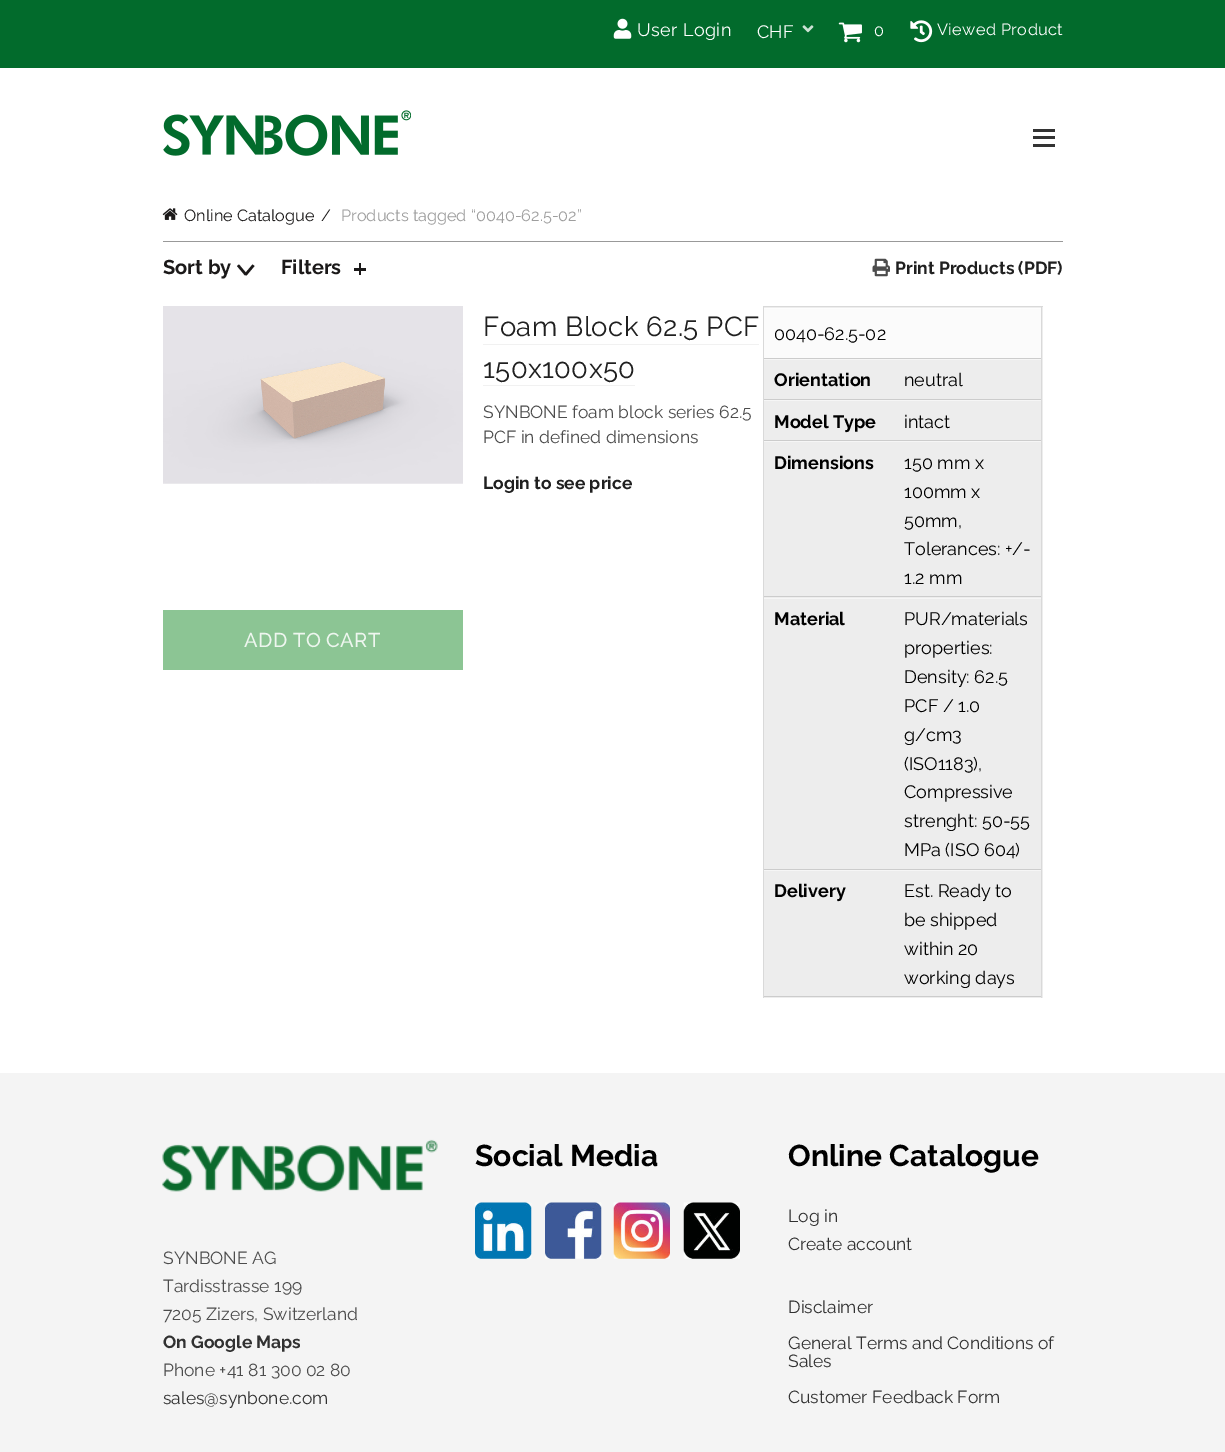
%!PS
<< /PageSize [1225 1452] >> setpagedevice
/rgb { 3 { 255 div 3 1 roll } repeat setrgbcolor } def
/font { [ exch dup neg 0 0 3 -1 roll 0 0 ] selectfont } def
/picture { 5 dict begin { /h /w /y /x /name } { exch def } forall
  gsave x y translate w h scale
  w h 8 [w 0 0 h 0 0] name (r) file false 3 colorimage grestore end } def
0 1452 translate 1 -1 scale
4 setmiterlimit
255 255 255 rgb
0 0 1225 1452 rectfill
2 107 44 rgb
0 0 1225 68 rectfill
(img/1.rgb) 613 18 19 21 picture
(img/2.rgb) 802 25 12 8 picture
(img/3.rgb) 838 22 24 21 picture
(img/4.rgb) 910 20 23 23 picture
(img/5.rgb) 163 110 248 46 picture
[
  [1033 136 22 3 51 51 51]
  [1033 129 22 3 51 51 51]
  [1033 144 22 3 51 51 51]
] { aload pop rgb rectfill } forall
(img/6.rgb) 162 208 16 12 picture
153 153 153 rgb
163 241 900 1 rectfill
27 25 25 rgb
244.5 274 moveto 252.5 264.5 lineto 254.5 266 lineto 246.5 275.5 lineto closepath fill
239 264.5 moveto 247 274 lineto 245 275.5 lineto 237 266 lineto closepath fill
359 263 2 12 rectfill
354 268 12 3 rectfill
(img/7.rgb) 872 258 18 19 picture
(img/8.rgb) 163 306 300 178 picture
[
  [163 610 300 60 140 197 148]
  [483 344 276 1 241 241 241]
  [483 385 152 1 241 241 241]
  [764 307 279 691 237 237 237]
  [763 306 280 1 217 217 217]
  [1041 306 1 692 217 217 217]
  [763 306 1 692 217 217 217]
  [764 309 277 49 251 251 251]
  [764 308 277 1 253 253 253]
  [764 358 277 1 204 204 204]
  [764 359 277 1 246 246 246]
  [764 399 277 1 204 204 204]
  [764 400 277 1 246 246 246]
  [764 440 277 1 204 204 204]
  [764 441 277 1 246 246 246]
  [764 596 277 1 204 204 204]
  [764 598 277 1 246 246 246]
  [764 869 277 1 204 204 204]
  [764 870 277 1 246 246 246]
  [764 996 277 1 204 204 204]
  [0 1073 1225 379 244 244 244]
] { aload pop rgb rectfill } forall
(img/9.rgb) 162 1139 276 53 picture
(img/10.rgb) 475 1202 57 57 picture
(img/11.rgb) 545 1202 57 57 picture
(img/12.rgb) 613 1202 57 57 picture
(img/13.rgb) 683 1202 57 57 picture
/Raleway-Regular 18 font
255 255 255 rgb
637 36 moveto 0.4 0 (User Login) ashow
757 38 moveto (CHF) show
/Raleway-Regular 16.25 font
874 36 moveto 0.4 0 (0) ashow
937 35 moveto 0.4 0 (Viewed Product) ashow
27 25 25 rgb
184 221 moveto (Online Catalogue) show
321 221 moveto (/) show
158 158 158 rgb
341 221 moveto (Products tagged “0040-62.5-02”) show
/Raleway-Bold 20 font
27 25 25 rgb
163 274 moveto (Sort by) show
281 274 moveto (Filters) show
/Raleway-Bold 17.5 font
32 32 32 rgb
895 274 moveto (Print Products \(PDF\)) show
/Raleway-Medium 20 font
238 246 239 rgb
244 647 moveto 0.4 0 (ADD TO CART) ashow
/Raleway-Regular 27.5 font
32 32 32 rgb
483 336 moveto 0.4 0 (Foam Block 62.5 PCF) ashow
483 378 moveto 0.4 0 (150x100x50) ashow
/Raleway-Regular 17.5 font
76 76 76 rgb
483 418 moveto (SYNBONE foam block series 62.5) show
483 443 moveto (PCF in defined dimensions) show
/Raleway-Bold 17.5 font
32 32 32 rgb
483 489 moveto (Login to see price) show
/Raleway-Regular 18 font
0 0 0 rgb
774 340 moveto (0040-62.5-02) show
/Raleway-Bold 18 font
774 386 moveto (Orientation) show
/Raleway-Regular 18 font
904 386 moveto (neutral) show
/Raleway-Bold 18 font
774 428 moveto (Model Type) show
/Raleway-Regular 18 font
904 428 moveto (intact) show
/Raleway-Bold 18 font
774 469 moveto (Dimensions) show
/Raleway-Regular 18 font
[
  [(150 mm x) 904 469]
  [(100mm x) 904 498]
  [(50mm,) 904 527]
  [(Tolerances: +/-) 904 555]
  [(1.2 mm) 904 584]
] { aload pop moveto show } forall
/Raleway-Bold 18 font
774 625 moveto (Material) show
/Raleway-Regular 18 font
[
  [(PUR/materials) 904 625]
  [(properties:) 904 654]
  [(Density: 62.5) 904 683]
  [(PCF / 1.0) 904 712]
  [(g/cm3) 904 741]
  [(\(ISO1183\),) 904 770]
  [(Compressive) 904 798]
  [(strenght: 50-55) 904 827]
  [(MPa \(ISO 604\)) 904 856]
] { aload pop moveto show } forall
/Raleway-Bold 18 font
774 897 moveto (Delivery) show
/Raleway-Regular 18 font
[
  [(Est. Ready to) 904 897]
  [(be shipped) 904 926]
  [(within 20) 904 955]
  [(working days) 904 984]
] { aload pop moveto show } forall
/Raleway-Regular 17.5 font
76 76 76 rgb
[
  [(SYNBONE AG) 163 1264]
  [(Tardisstrasse 199) 163 1292]
  [(7205 Zizers, Switzerland) 163 1320]
] { aload pop moveto show } forall
/Raleway-Bold 17.5 font
49 49 49 rgb
163 1348 moveto (On Google Maps) show
/Raleway-Regular 17.5 font
76 76 76 rgb
163 1376 moveto (Phone +41 81 300 02 80) show
49 49 49 rgb
163 1404 moveto (sales@synbone.com) show
/Raleway-Bold 30 font
0 0 0 rgb
475 1166 moveto (Social Media) show
788 1166 moveto (Online Catalogue) show
/Raleway-Regular 17.5 font
49 49 49 rgb
[
  [(Log in) 788 1222]
  [(Create account) 788 1250]
  [(Disclaimer) 788 1313]
  [(General Terms and Conditions of) 788 1349]
  [(Sales) 788 1367]
  [(Customer Feedback Form) 788 1403]
] { aload pop moveto show } forall
showpage
